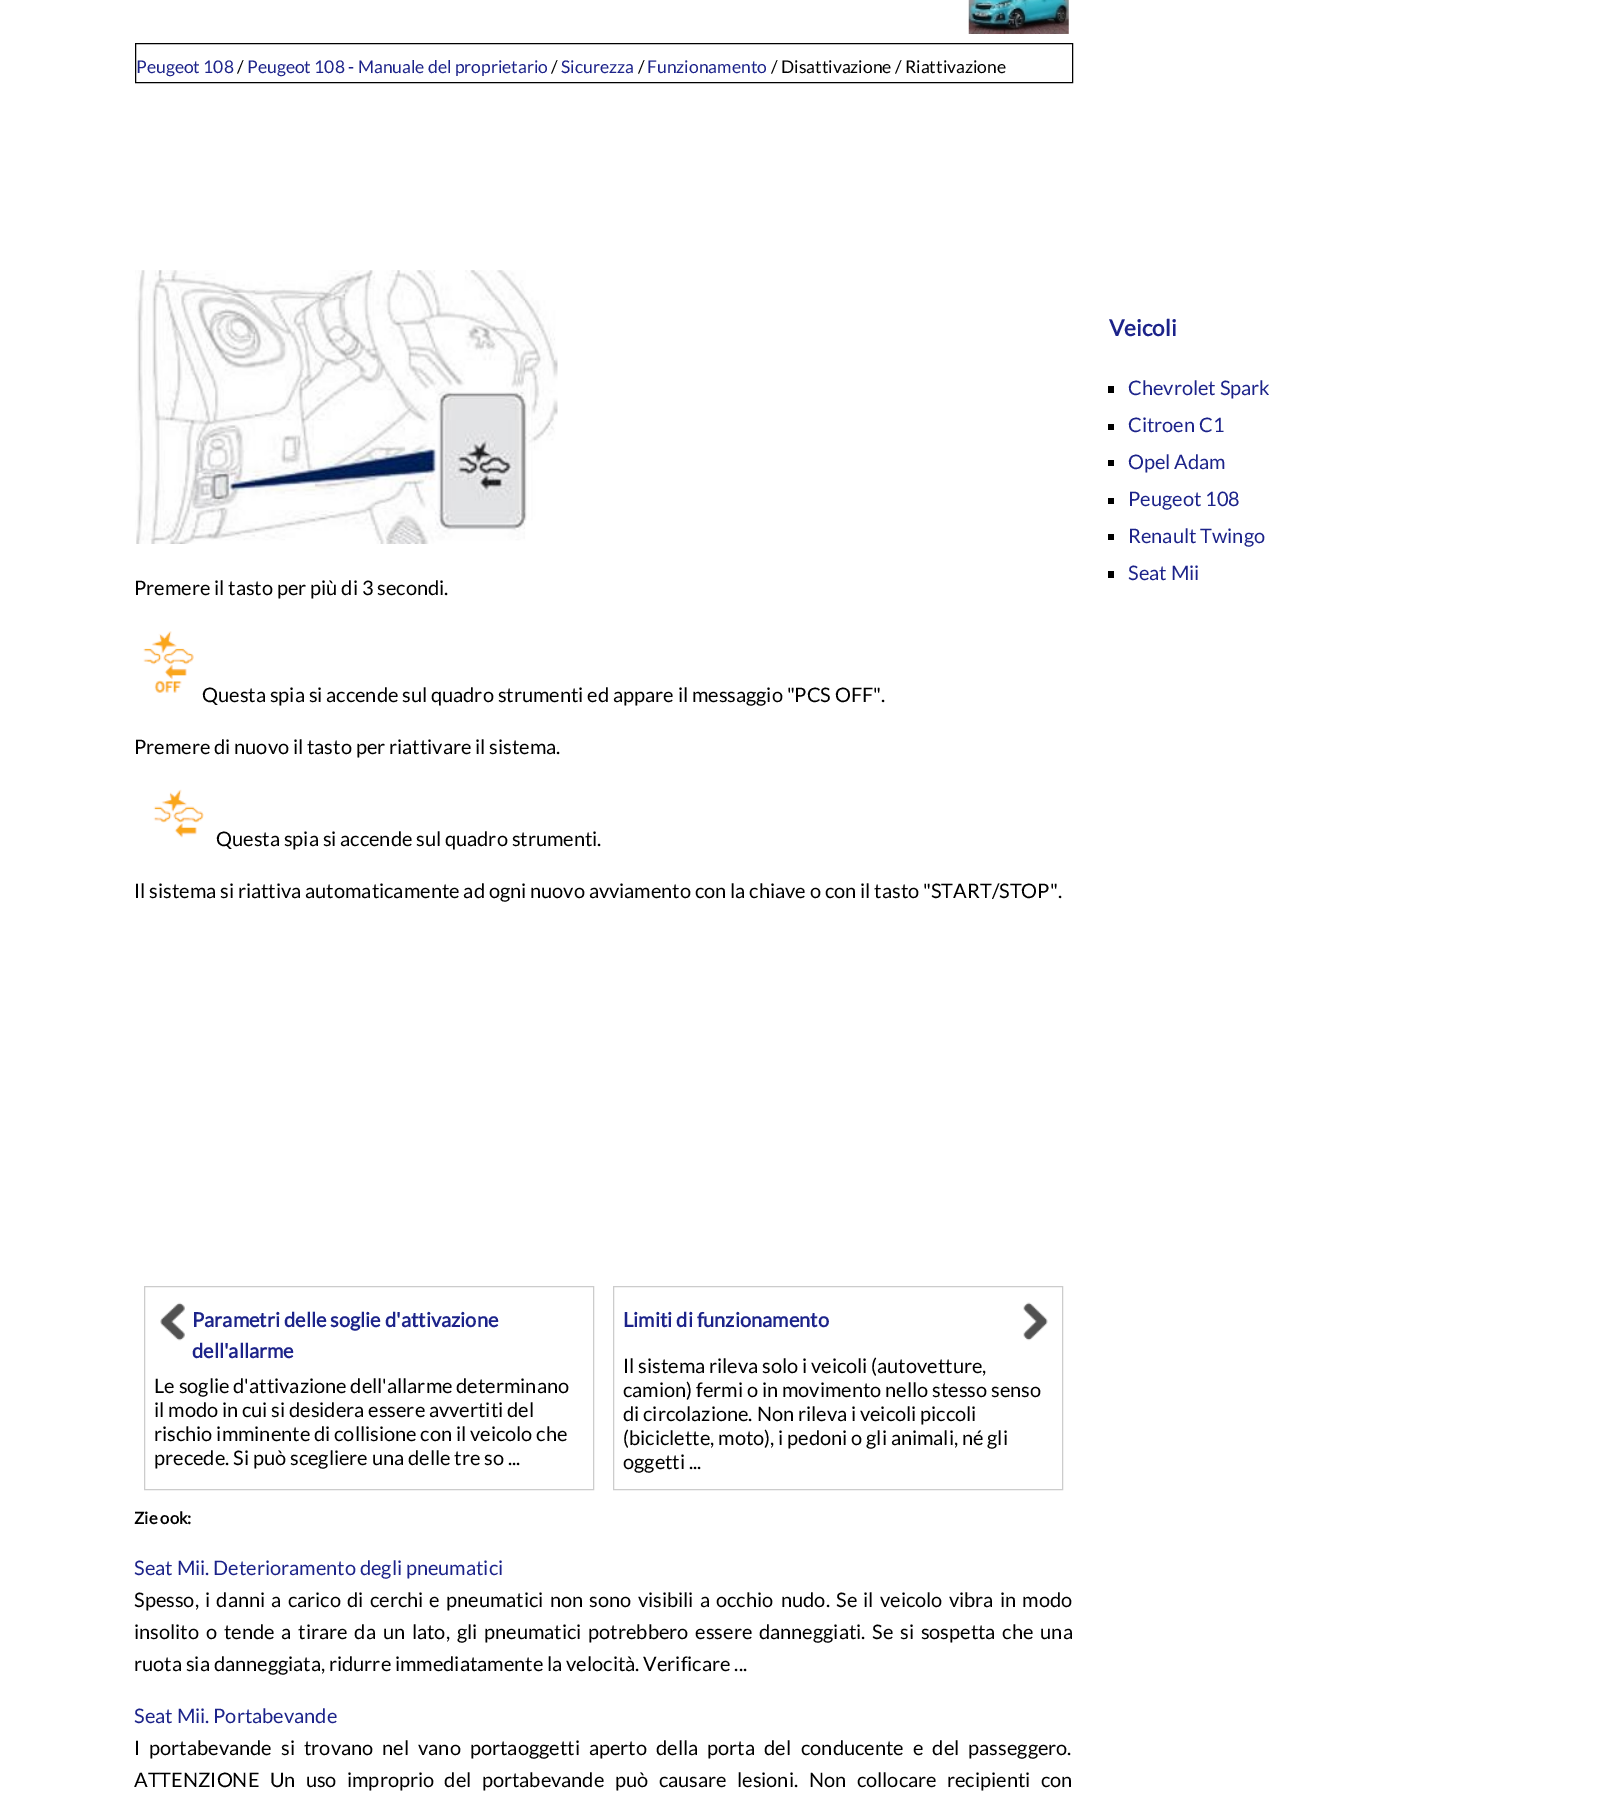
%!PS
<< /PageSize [1618 1800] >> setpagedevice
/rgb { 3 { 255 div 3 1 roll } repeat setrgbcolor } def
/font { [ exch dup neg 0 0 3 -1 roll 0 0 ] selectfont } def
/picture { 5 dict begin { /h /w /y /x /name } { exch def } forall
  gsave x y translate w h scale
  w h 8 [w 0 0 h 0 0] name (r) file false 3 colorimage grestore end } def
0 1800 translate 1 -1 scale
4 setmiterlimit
255 255 255 rgb
0 0 1618 1800 rectfill
(img/1.rgb) 968 0 101 34 picture
0 0 0 rgb
135.5 43.5 937 39 rectstroke
(img/2.rgb) 135 270 423 274 picture
(img/3.rgb) 143 631 51 62 picture
(img/4.rgb) 153 789 51 49 picture
204 204 204 rgb
144.5 1286.5 449 203 rectstroke
(img/5.rgb) 160 1302 25 39 picture
613.5 1286.5 449 203 rectstroke
(img/6.rgb) 1023 1302 25 39 picture
[
  [1108 386 6 7 0 0 0]
  [1108 424 6 6 0 0 0]
  [1108 460 6 6 0 0 0]
  [1108 498 6 6 0 0 0]
  [1108 534 6 6 0 0 0]
  [1108 571 6 7 0 0 0]
] { aload pop rgb rectfill } forall
/Lato-Regular 17.5 font
28 35 138 rgb
136 73 moveto (Peugeot 108) show
0 0 0 rgb
237 73 moveto (/) show
28 35 138 rgb
247 73 moveto (Peugeot 108 - Manuale del proprietario) show
0 0 0 rgb
551 73 moveto (/) show
28 35 138 rgb
561 73 moveto (Sicurezza) show
0 0 0 rgb
638 73 moveto (/) show
28 35 138 rgb
647 73 moveto (Funzionamento) show
0 0 0 rgb
771 73 moveto (/ Disattivazione / Riattivazione) show
/Lato-Regular 20 font
[
  [(Premere il tasto per più di 3 secondi.) 134 595]
  [(Questa spia si accende sul quadro strumenti ed appare il messaggio "PCS OFF".) 202 702]
  [(Premere di nuovo il tasto per riattivare il sistema.) 134 754]
  [(Questa spia si accende sul quadro strumenti.) 216 846]
  [(Il sistema si riattiva automaticamente ad ogni nuovo avviamento con la chiave o con il tasto "START/STOP".) 134 898]
] { aload pop moveto show } forall
/Lato-Bold 20 font
28 35 138 rgb
192 1327 moveto (Parametri delle soglie d'attivazione) show
192 1358 moveto (dell'allarme) show
/Lato-Regular 20 font
0 0 0 rgb
[
  [(Le soglie d'attivazione dell'allarme determinano) 154 1393]
  [(il modo in cui si desidera essere avvertiti del) 154 1417]
  [(rischio imminente di collisione con il veicolo che) 154 1441]
  [(precede. Si può scegliere una delle tre so ...) 154 1465]
] { aload pop moveto show } forall
/Lato-Bold 20 font
28 35 138 rgb
623 1327 moveto (Limiti di funzionamento) show
/Lato-Regular 20 font
0 0 0 rgb
[
  [(Il sistema rileva solo i veicoli \(autovetture,) 623 1373]
  [(camion\) fermi o in movimento nello stesso senso) 623 1397]
  [(di circolazione. Non rileva i veicoli piccoli) 623 1421]
  [(\(biciclette, moto\), i pedoni o gli animali, né gli) 623 1445]
  [(oggetti ...) 623 1469]
] { aload pop moveto show } forall
/Lato-Bold 16.5 font
134 1524 moveto (Zie ook:) show
/Lato-Regular 20 font
28 35 138 rgb
134 1575 moveto (Seat Mii. Deterioramento degli pneumatici) show
0 0 0 rgb
134 1607 moveto 2.4 0 32 (Spesso, i danni a carico di cerchi e pneumatici non sono visibili a occhio) widthshow
781 1607 moveto 2.4 0 32 (nudo. Se il veicolo vibra in modo) widthshow
134 1639 moveto 3 0 32 (insolito o tende a tirare da un lato, gli) widthshow
484 1639 moveto 3 0 32 (pneumatici potrebbero essere danneggiati.) widthshow
872 1639 moveto 3 0 32 (Se si sospetta che una) widthshow
134 1671 moveto (ruota sia danneggiata, ridurre immediatamente la velocità. Verificare ...) show
28 35 138 rgb
134 1723 moveto (Seat Mii. Portabevande) show
0 0 0 rgb
134 1755 moveto 5.25 0 32 (I portabevande si trovano nel vano portaoggetti aperto della porta del) widthshow
801 1755 moveto 5.25 0 32 (conducente e del passeggero.) widthshow
134 1787 moveto 6.5 0 32 (ATTENZIONE Un uso improprio del portabevande) widthshow
615 1787 moveto 6.5 0 32 (può causare lesioni.) widthshow
809 1787 moveto 6.5 0 32 (Non collocare recipienti con) widthshow
/Lato-Bold 22.5 font
28 35 138 rgb
1109 336 moveto (Veicoli) show
/Lato-Regular 20 font
[
  [(Chevrolet Spark) 1128 395]
  [(Citroen C1) 1128 432]
  [(Opel Adam) 1128 469]
  [(Peugeot 108) 1128 506]
  [(Renault Twingo) 1128 543]
  [(Seat Mii) 1128 580]
] { aload pop moveto show } forall
showpage
